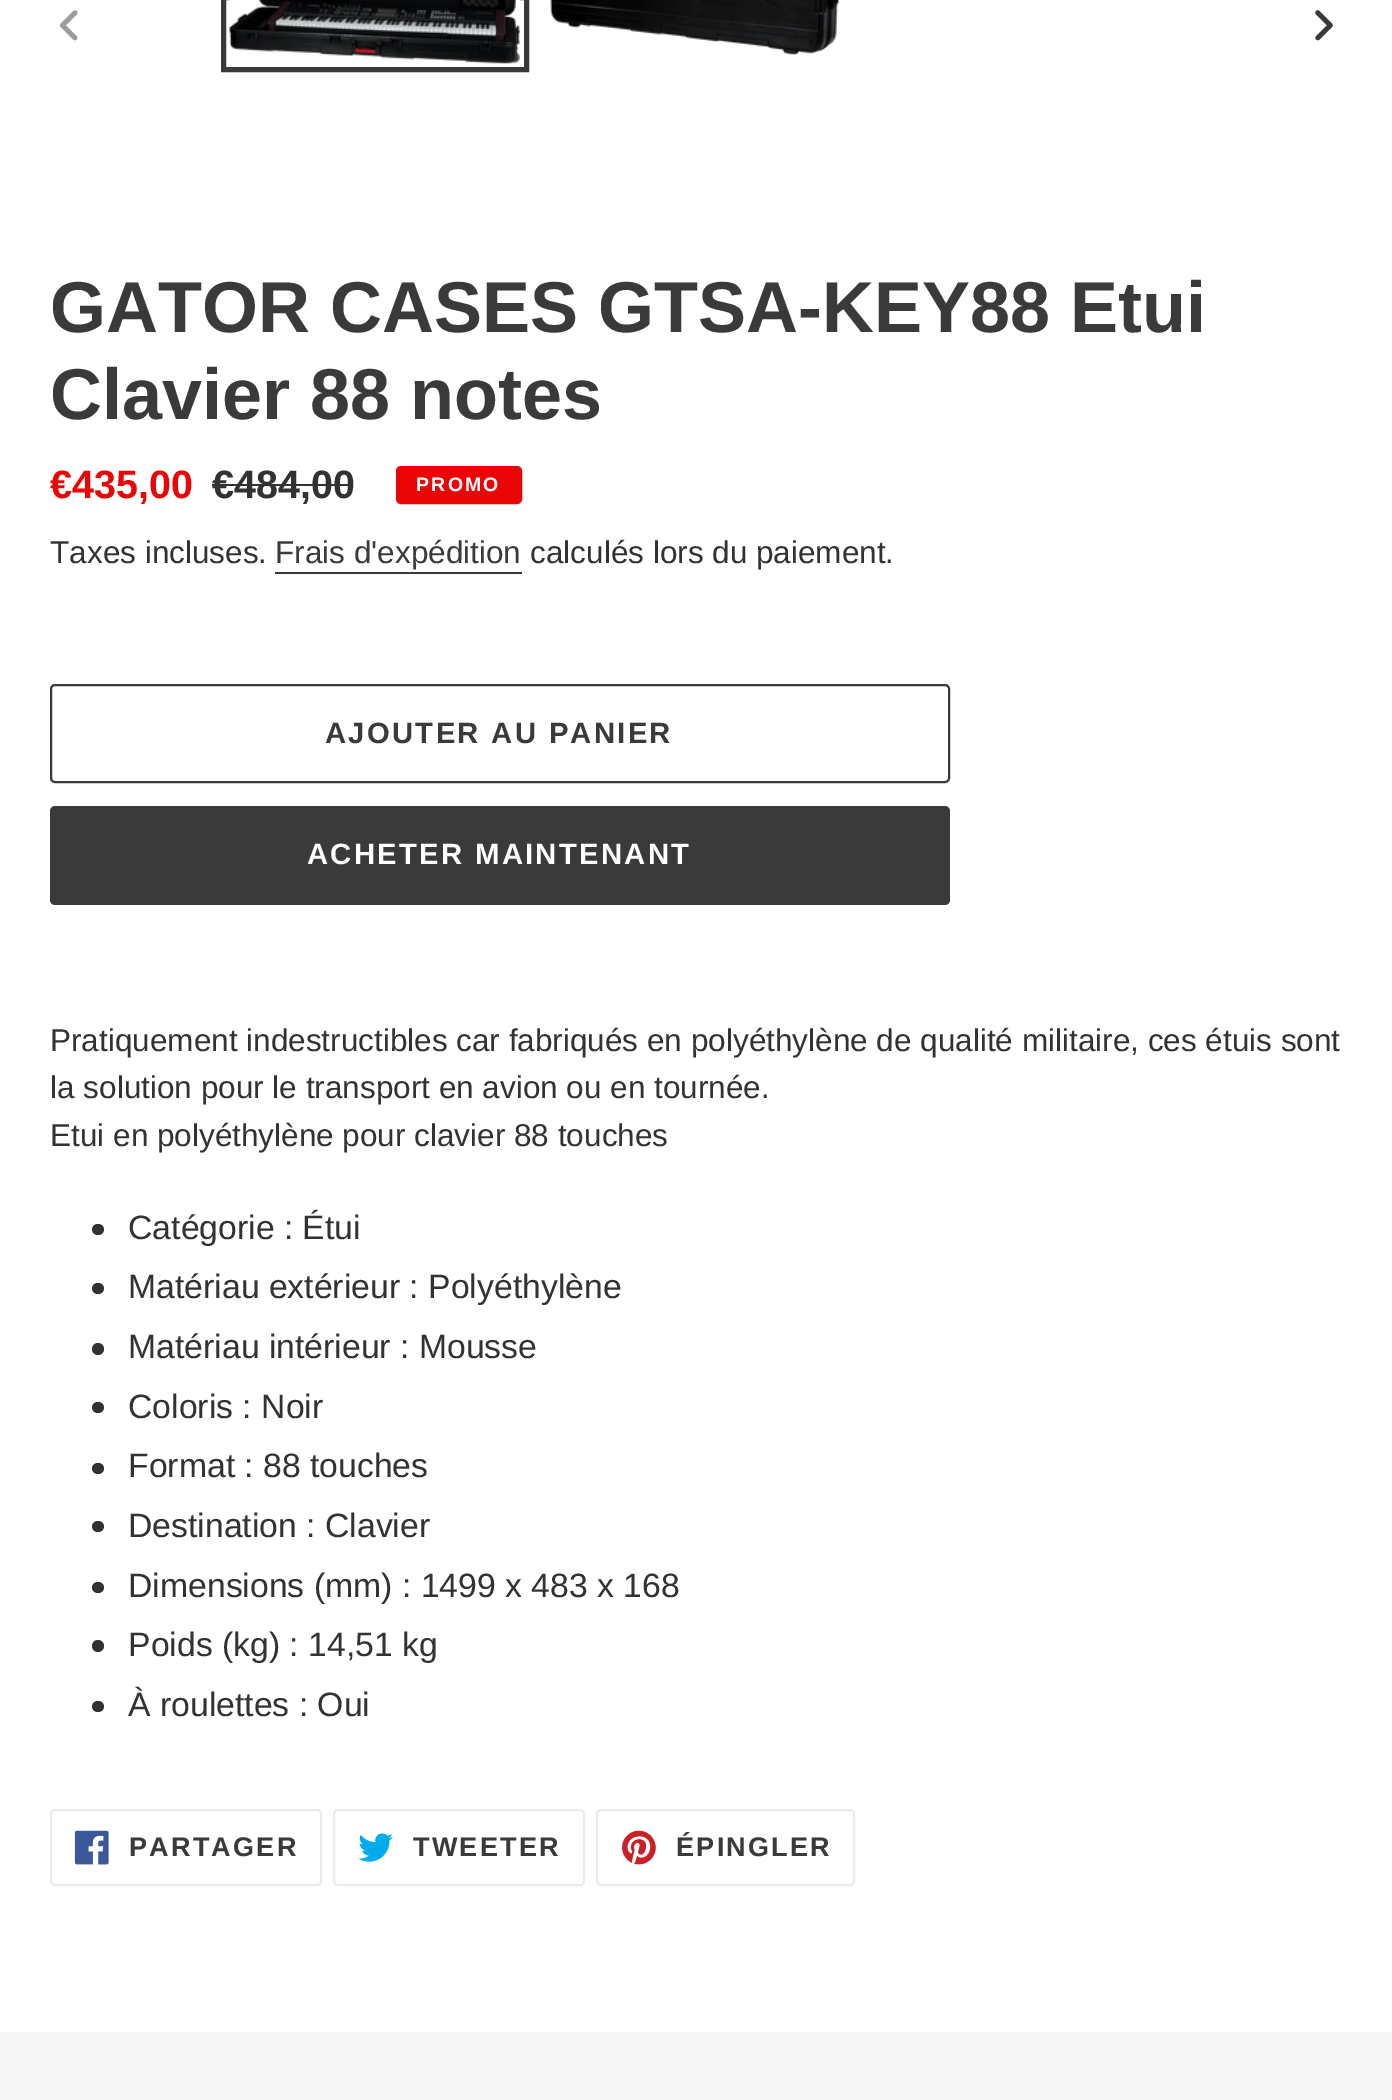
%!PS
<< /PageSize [1392 2100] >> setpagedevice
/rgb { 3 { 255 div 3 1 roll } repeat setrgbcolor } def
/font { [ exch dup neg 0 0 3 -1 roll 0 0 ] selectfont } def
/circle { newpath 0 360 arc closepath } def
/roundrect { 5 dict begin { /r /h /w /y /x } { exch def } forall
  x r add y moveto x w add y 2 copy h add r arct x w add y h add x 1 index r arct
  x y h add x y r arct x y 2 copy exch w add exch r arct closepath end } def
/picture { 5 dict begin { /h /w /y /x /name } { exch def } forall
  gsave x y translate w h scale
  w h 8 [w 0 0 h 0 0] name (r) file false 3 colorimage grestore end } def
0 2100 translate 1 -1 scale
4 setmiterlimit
255 255 255 rgb
0 0 1392 2100 rectfill
(img/1.rgb) 59 10 19 31 picture
58 58 58 rgb
5 setlinewidth
223.5 -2.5 303 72 rectstroke
(img/2.rgb) 229 0 291 64 picture
(img/3.rgb) 550 0 290 55 picture
(img/4.rgb) 1315 10 18 31 picture
51 50 50 rgb
212 484 141 2 rectfill
234 6 6 rgb
397 467 124 36 4 roundrect gsave fill grestore
2 setlinewidth
stroke
58 58 58 rgb
275 572 247 2 rectfill
51 685 898 97 4 roundrect stroke
50 806 900 99 5 roundrect fill
51 50 50 rgb
92 1224 12 11 5.5 roundrect fill
92 1283 12 11 5.5 roundrect fill
98 1349 6 circle fill
92 1402 12 11 5.5 roundrect fill
92 1463 12 11 5.5 roundrect fill
92 1521 12 11 5.5 roundrect fill
92 1582 12 11 5.5 roundrect fill
98 1646 6 circle fill
92 1701 12 11 5.5 roundrect fill
235 235 235 rgb
51 1810 270 75 4 roundrect stroke
(img/5.rgb) 74 1830 35 35 picture
334 1810 250 75 4 roundrect stroke
(img/6.rgb) 358 1833 35 29 picture
597 1810 257 75 4 roundrect stroke
(img/7.rgb) 622 1830 34 35 picture
246 246 246 rgb
0 2032 1392 68 rectfill
/LiberationSans-Bold 72 font
58 58 58 rgb
50 332 moveto (GATOR CASES GTSA-KEY88 Etui) show
50 419 moveto (Clavier 88 notes) show
/LiberationSans-Bold 39.5 font
234 6 6 rgb
50 498 moveto (€435,00) show
51 50 50 rgb
212 498 moveto (€484,00) show
/LiberationSans-Bold 19.5 font
255 255 255 rgb
416 491 moveto 2.25 0 (PROMO) ashow
/LiberationSans-Regular 31.5 font
51 50 50 rgb
50 563 moveto (Taxes incluses.) show
58 58 58 rgb
275 563 moveto (Frais d'expédition) show
51 50 50 rgb
530 563 moveto (calculés lors du paiement.) show
/LiberationSans-Bold 29.25 font
58 58 58 rgb
325 743 moveto 2.3 0 (AJOUTER AU PANIER) ashow
255 255 255 rgb
307 864 moveto 2.3 0 (ACHETER MAINTENANT) ashow
/LiberationSans-Regular 31.5 font
51 50 50 rgb
[
  [(Pratiquement indestructibles car fabriqués en polyéthylène de qualité militaire, ces étuis sont) 50 1051]
  [(la solution pour le transport en avion ou en tournée.) 50 1098]
  [(Etui en polyéthylène pour clavier 88 touches) 50 1146]
] { aload pop moveto show } forall
/LiberationSans-Regular 33.75 font
[
  [(Catégorie : Étui) 128 1239]
  [(Matériau extérieur : Polyéthylène) 128 1298]
  [(Matériau intérieur : Mousse) 128 1358]
  [(Coloris : Noir) 128 1418]
  [(Format : 88 touches) 128 1477]
  [(Destination : Clavier) 128 1537]
  [(Dimensions \(mm\) : 1499 x 483 x 168) 128 1597]
  [(Poids \(kg\) : 14,51 kg) 128 1656]
  [(À roulettes : Oui) 128 1716]
] { aload pop moveto show } forall
/LiberationSans-Bold 27 font
58 58 58 rgb
129 1856 moveto 2.25 0 (PARTAGER) ashow
413 1856 moveto 2.25 0 (TWEETER) ashow
676 1856 moveto 2.25 0 (ÉPINGLER) ashow
showpage
